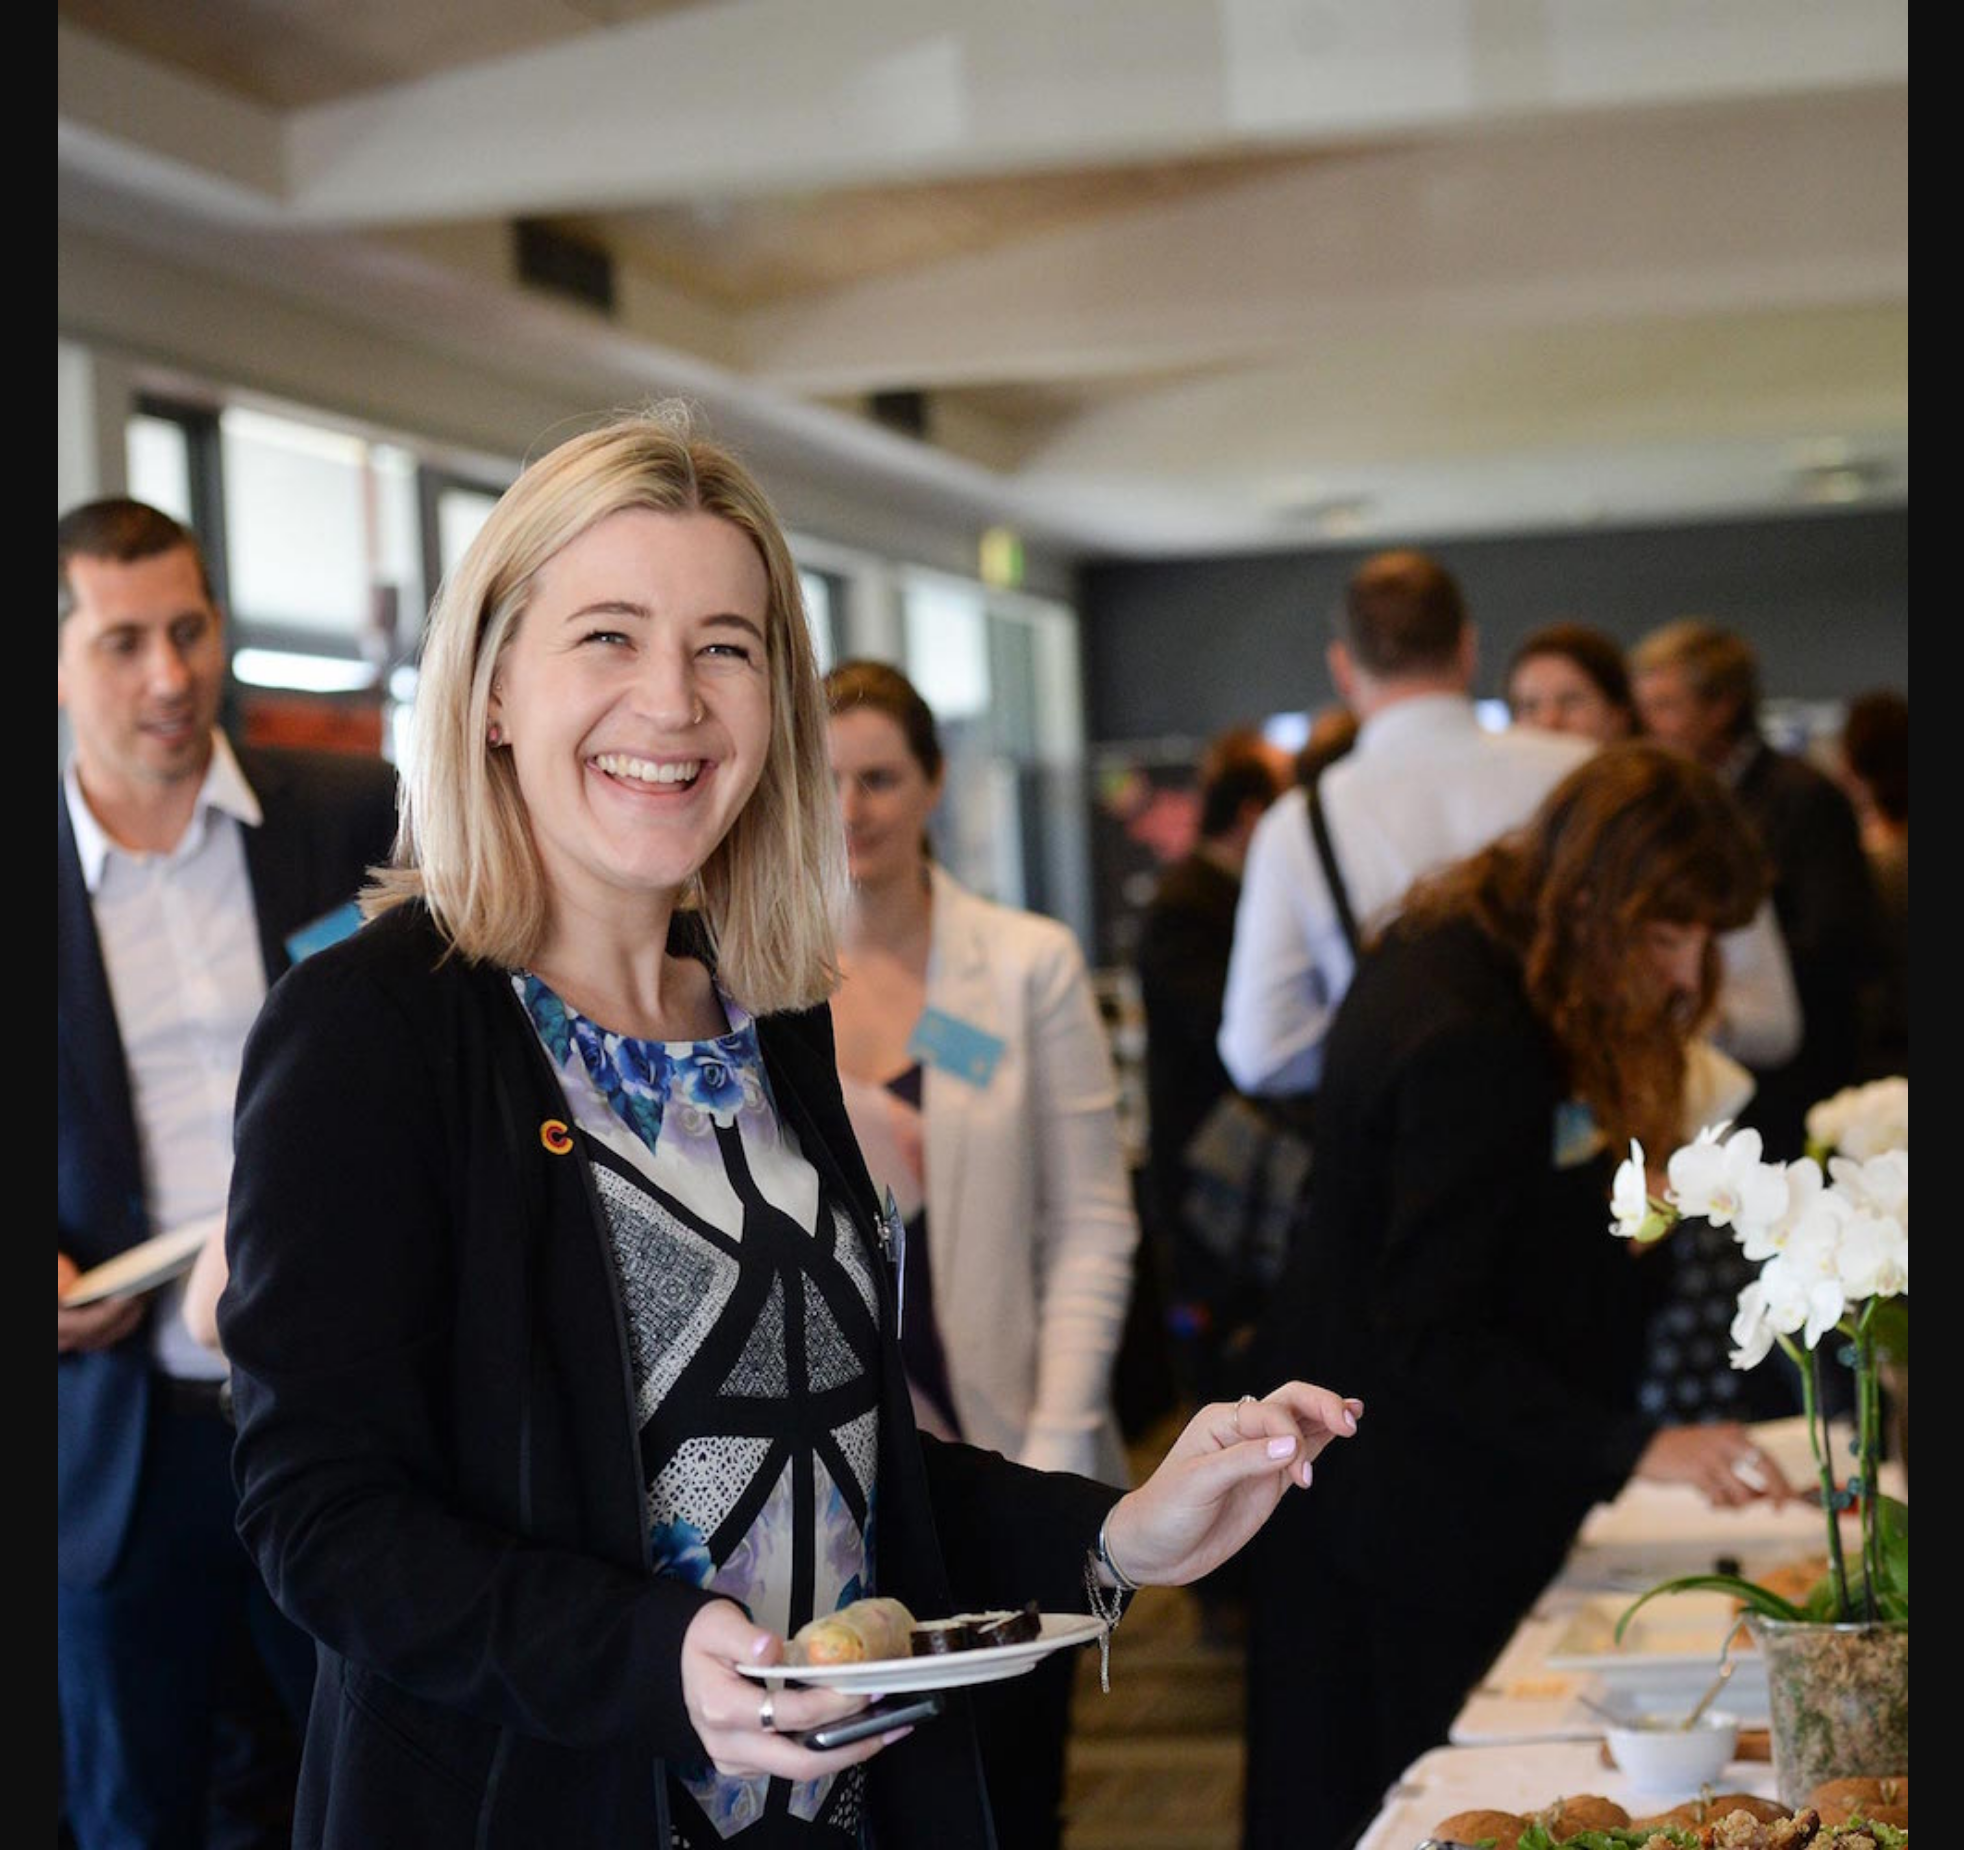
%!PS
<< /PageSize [1964 1850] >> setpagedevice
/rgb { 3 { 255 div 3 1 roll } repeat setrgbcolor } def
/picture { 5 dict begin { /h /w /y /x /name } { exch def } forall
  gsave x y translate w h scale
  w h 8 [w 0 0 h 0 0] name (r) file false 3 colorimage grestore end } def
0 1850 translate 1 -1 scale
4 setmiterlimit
14 14 14 rgb
0 0 1964 1850 rectfill
(img/1.rgb) 58 0 1850 1850 picture
showpage
